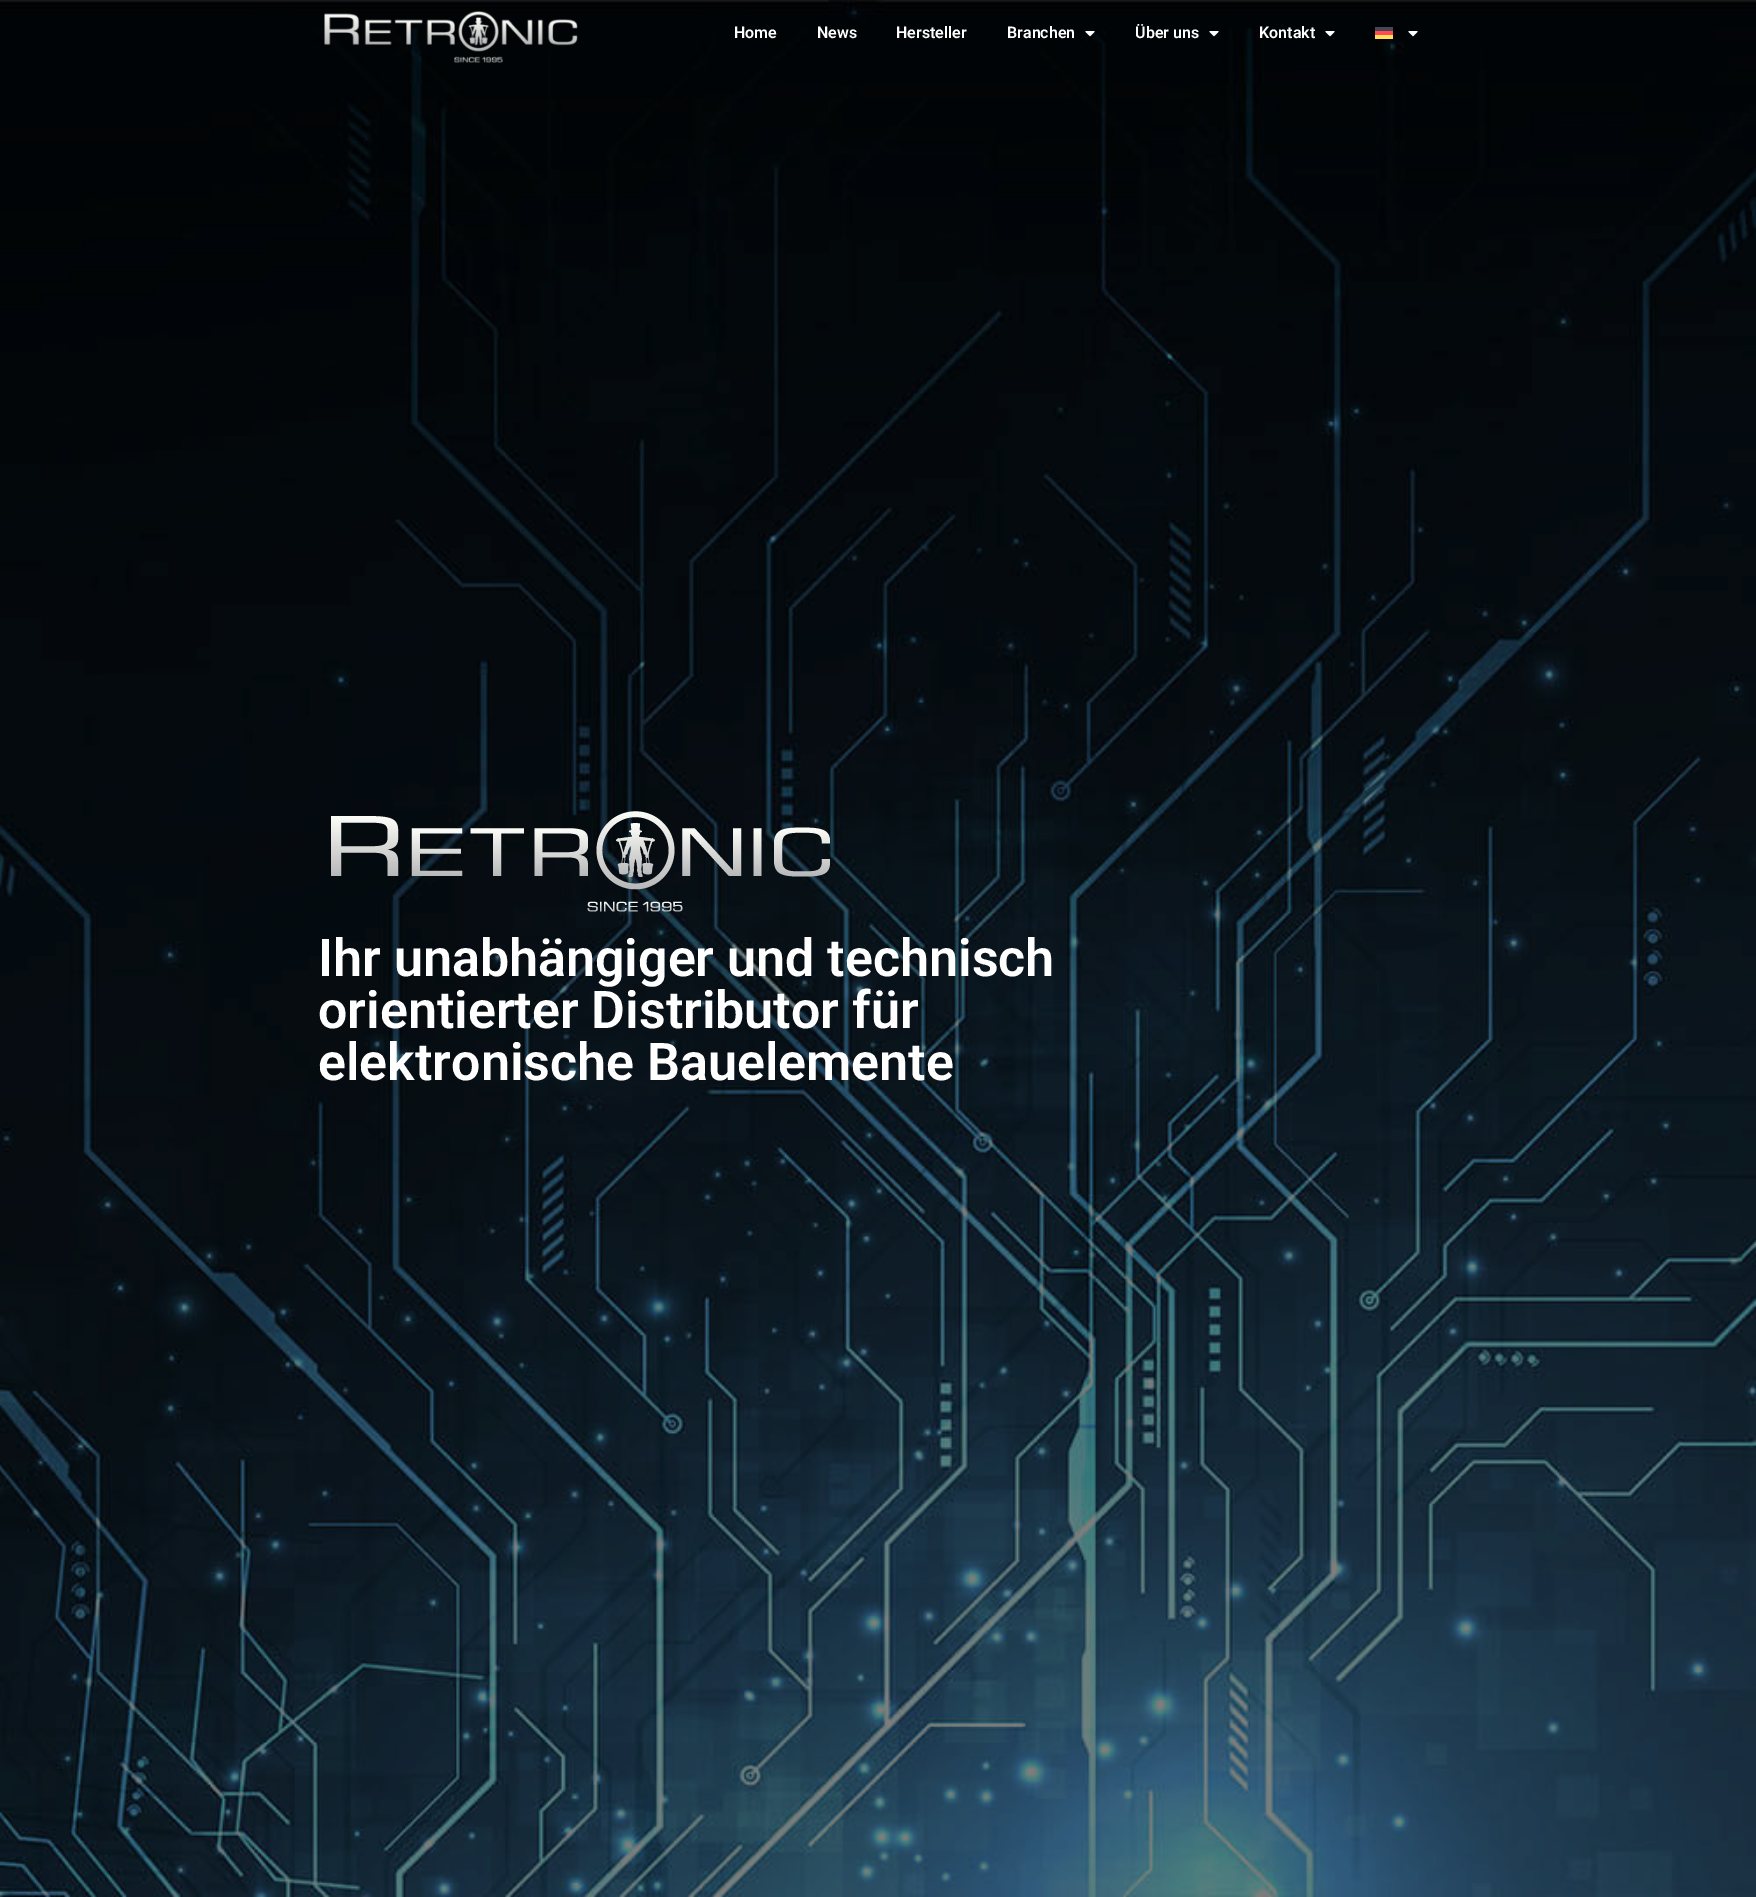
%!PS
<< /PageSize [1756 1897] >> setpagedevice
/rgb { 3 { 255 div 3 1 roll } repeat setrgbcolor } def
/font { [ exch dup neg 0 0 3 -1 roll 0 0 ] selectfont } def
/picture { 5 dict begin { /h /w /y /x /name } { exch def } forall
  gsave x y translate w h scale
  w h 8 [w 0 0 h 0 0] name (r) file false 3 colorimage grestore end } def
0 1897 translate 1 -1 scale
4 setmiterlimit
255 255 255 rgb
0 0 1756 1897 rectfill
(img/5.rgb) 0 0 1756 1897 picture
(img/1.rgb) 324 11 254 52 picture
(img/2.rgb) 1085 31 10 6 picture
(img/3.rgb) 1209 31 10 6 picture
(img/4.rgb) 1325 31 10 6 picture
[
  [1375 31 18 4 255 75 85]
  [1375 35 18 4 255 225 90]
  [1375 27 18 4 70 70 85]
] { aload pop rgb rectfill } forall
(img/3.rgb) 1408 31 10 6 picture
(img/6.rgb) 331 811 499 101 picture
/Roboto-SemiBold 16 font
255 255 255 rgb
[
  [(Home) 734 38]
  [(News) 817 38]
  [(Hersteller) 896 38]
  [(Branchen) 1007 38]
  [(Über uns) 1135 38]
  [(Kontakt) 1259 38]
] { aload pop moveto show } forall
/Roboto-SemiBold 52 font
[
  [(Ihr unabhängiger und technisch) 318 976]
  [(orientierter Distributor für) 318 1028]
  [(elektronische Bauelemente) 318 1080]
] { aload pop moveto show } forall
showpage
